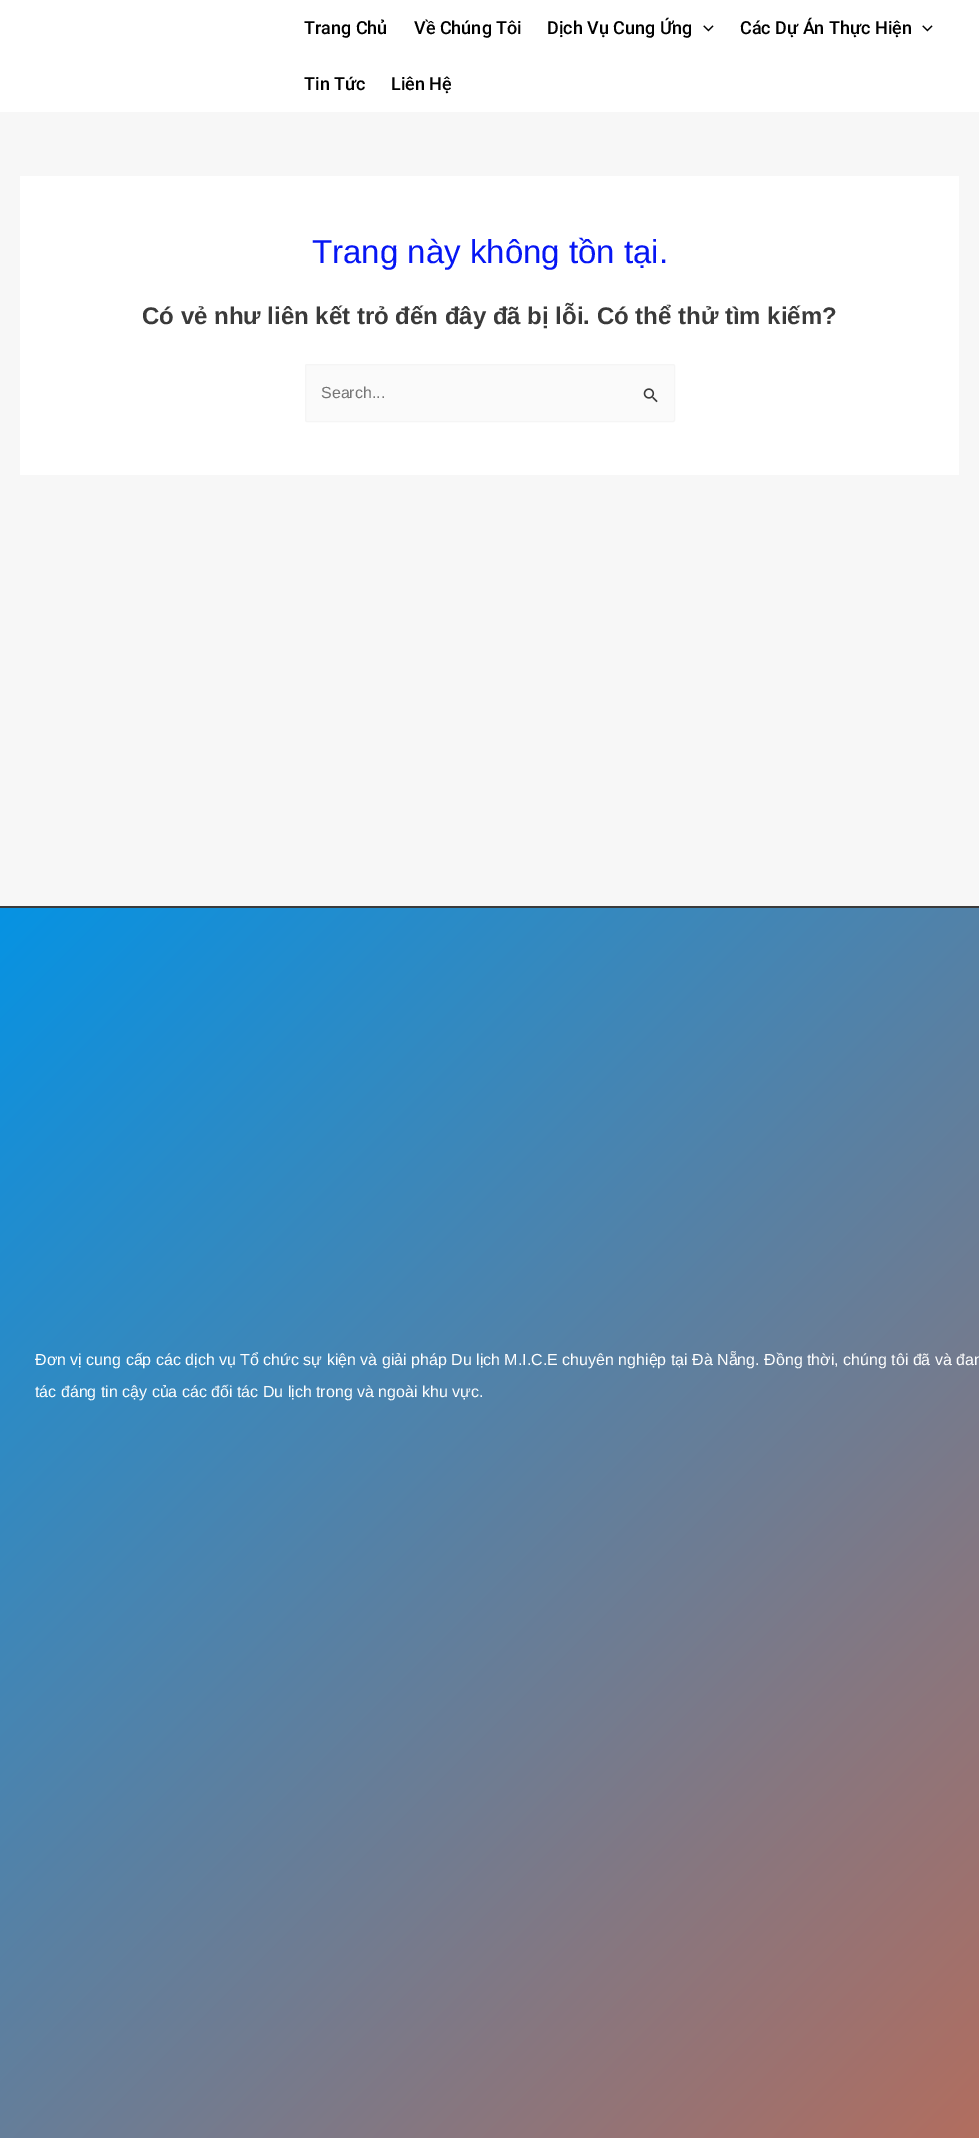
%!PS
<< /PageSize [979 2138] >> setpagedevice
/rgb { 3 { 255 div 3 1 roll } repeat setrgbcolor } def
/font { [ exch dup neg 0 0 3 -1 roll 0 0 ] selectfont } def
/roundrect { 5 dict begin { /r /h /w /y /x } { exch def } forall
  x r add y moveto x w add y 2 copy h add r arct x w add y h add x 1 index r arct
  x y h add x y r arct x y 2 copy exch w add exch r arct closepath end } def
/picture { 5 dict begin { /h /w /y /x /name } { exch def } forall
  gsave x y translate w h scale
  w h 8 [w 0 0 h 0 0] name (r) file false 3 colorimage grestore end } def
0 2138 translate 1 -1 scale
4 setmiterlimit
247 247 247 rgb
0 0 979 2138 rectfill
255 255 255 rgb
0 0 979 112 rectfill
(img/1.rgb) 703 25 11 7 picture
(img/1.rgb) 922 25 11 7 picture
20 176 939 299 rectfill
250 250 250 rgb
305.5 364.5 369 57 1.5 roundrect gsave fill grestore
245 245 245 rgb
stroke
(img/2.rgb) 643 388 15 15 picture
gsave 0 908 moveto 979 908 lineto 979 2138 lineto 0 2138 lineto closepath clip newpath
<< /ShadingType 2 /ColorSpace /DeviceRGB /Coords [-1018 1926 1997 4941] /Extend [true true] /Function << /FunctionType 3 /Domain [0 1] /Functions [<< /FunctionType 2 /Domain [0 1] /C0 [0.024 0.576 0.89] /C1 [0.925 0.38 0.2] /N 1 >> << /FunctionType 2 /Domain [0 1] /C0 [0.925 0.38 0.2] /C1 [0.608 0.318 0.878] /N 1 >>] /Bounds [0.49] /Encode [0 1 0 1] >> >> shfill grestore
58 58 58 rgb
0 906 979 2 rectfill
/Roboto-Medium 18 font
0 0 0 rgb
[
  [(Trang Chủ) 304 34]
  [(Về Chúng Tôi) 414 34]
  [(Dịch Vụ Cung Ứng) 547 34]
  [(Các Dự Án Thực Hiện) 740 34]
  [(Tin Tức) 304 90]
  [(Liên Hệ) 391 90]
] { aload pop moveto show } forall
/LiberationSans-Regular 33 font
6 22 244 rgb
312 263 moveto (Trang này không tồn tại.) show
/LiberationSans-Bold 24 font
58 58 58 rgb
142 324 moveto (Có vẻ như liên kết trỏ đến đây đã bị lỗi. Có thể thử tìm kiếm?) show
/LiberationSans-Regular 16 font
117 117 117 rgb
321 398 moveto (Search...) show
255 255 255 rgb
35 1365 moveto (Đơn vị cung cấp các dịch vụ Tổ chức sự kiện và giải pháp Du lịch M.I.C.E chuyên nghiệp tại Đà Nẵng. Đồng thời, chúng tôi đã và đan) show
35 1397 moveto (tác đáng tin cậy của các đối tác Du lịch trong và ngoài khu vực.) show
showpage
